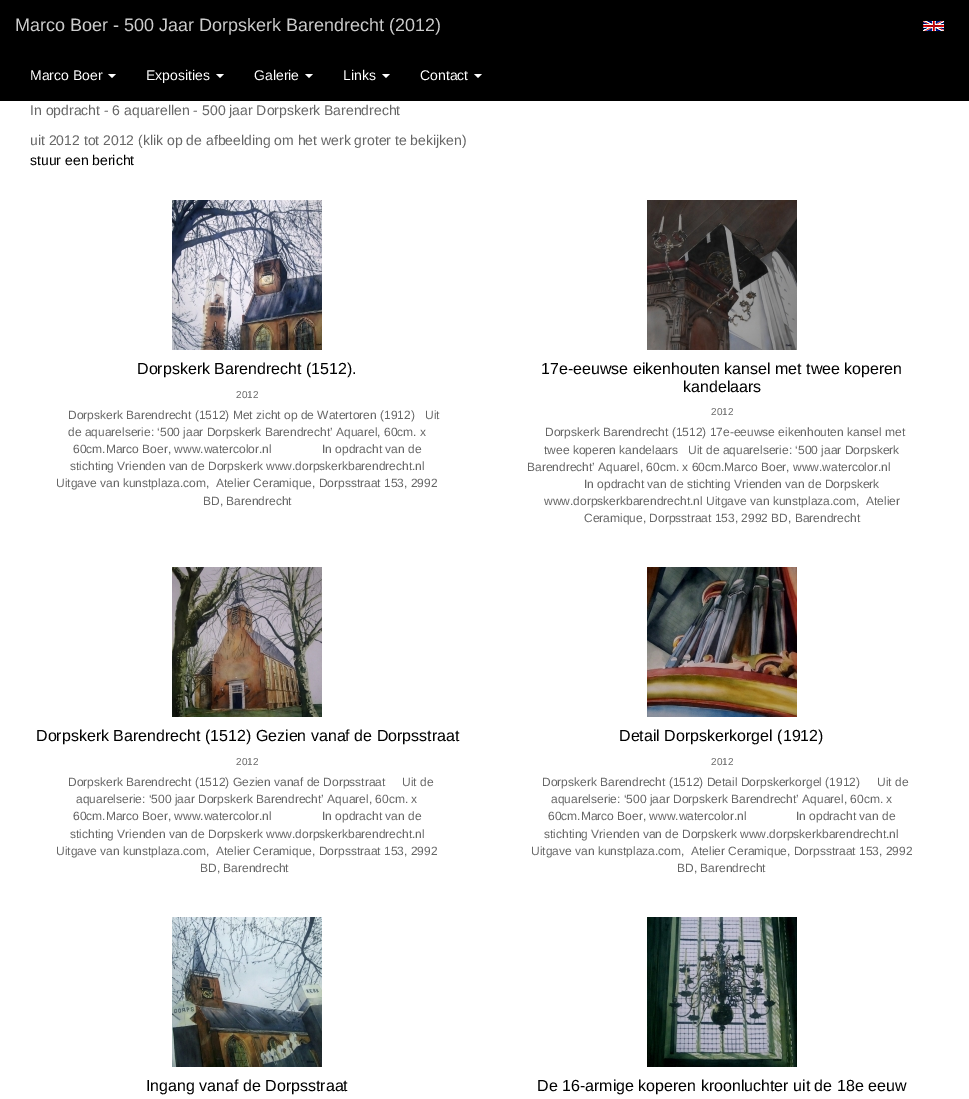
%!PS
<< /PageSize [969 1099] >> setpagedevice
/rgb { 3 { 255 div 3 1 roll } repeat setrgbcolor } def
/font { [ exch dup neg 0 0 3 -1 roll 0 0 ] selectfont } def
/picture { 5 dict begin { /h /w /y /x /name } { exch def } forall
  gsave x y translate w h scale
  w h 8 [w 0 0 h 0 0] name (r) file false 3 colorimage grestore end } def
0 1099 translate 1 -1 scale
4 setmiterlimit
255 255 255 rgb
0 0 969 1099 rectfill
0 0 0 rgb
0 0 969 101 rectfill
(img/1.rgb) 922 20 23 12 picture
255 255 255 rgb
108 74 moveto 116 74 lineto 112 78 lineto closepath fill
216 74 moveto 224 74 lineto 220 78 lineto closepath fill
305 74 moveto 313 74 lineto 309 78 lineto closepath fill
382 74 moveto 390 74 lineto 386 78 lineto closepath fill
474 74 moveto 482 74 lineto 478 78 lineto closepath fill
(img/2.rgb) 172 200 150 150 picture
(img/3.rgb) 647 200 150 150 picture
(img/4.rgb) 172 567 150 150 picture
(img/5.rgb) 647 567 150 150 picture
(img/6.rgb) 172 917 150 150 picture
(img/7.rgb) 647 917 150 150 picture
/LiberationSans-Regular 18 font
204 204 204 rgb
15 31 moveto (Marco Boer - 500 Jaar Dorpskerk Barendrecht \(2012\)) show
/LiberationSans-Regular 14 font
255 255 255 rgb
[
  [(Marco Boer) 30 80]
  [(Exposities) 146 80]
  [(Galerie) 254 80]
  [(Links) 343 80]
  [(Contact) 420 80]
] { aload pop moveto show } forall
102 102 102 rgb
30 115 moveto (In opdracht - 6 aquarellen - 500 jaar Dorpskerk Barendrecht) show
30 145 moveto (uit 2012 tot 2012 \(klik op de afbeelding om het werk groter te bekijken\)) show
0 0 0 rgb
30 165 moveto (stuur een bericht) show
/LiberationSans-Regular 16 font
137 374 moveto (Dorpskerk Barendrecht \(1512\).) show
/LiberationSans-Regular 10 font
102 102 102 rgb
236 398 moveto (2012) show
/LiberationSans-Regular 12 font
[
  [(Dorpskerk Barendrecht \(1512\) Met zicht op de Watertoren \(1912\)) 68 419]
  [(Uit) 425 419]
  [(de aquarelserie: ‘500 jaar Dorpskerk Barendrecht’ Aquarel, 60cm. x) 68 436]
  [(60cm.Marco Boer, www.watercolor.nl) 73 453]
  [(In opdracht van de) 322 453]
  [(stichting Vrienden van de Dorpskerk www.dorpskerkbarendrecht.nl) 70 470]
  [(Uitgave van kunstplaza.com,  Atelier Ceramique, Dorpsstraat 153, 2992) 56 487]
  [(BD, Barendrecht) 203 505]
] { aload pop moveto show } forall
/LiberationSans-Regular 16 font
0 0 0 rgb
541 374 moveto (17e-eeuwse eikenhouten kansel met twee koperen) show
683 392 moveto (kandelaars) show
/LiberationSans-Regular 10 font
102 102 102 rgb
711 415 moveto (2012) show
/LiberationSans-Regular 12 font
[
  [(Dorpskerk Barendrecht \(1512\) 17e-eeuwse eikenhouten kansel met) 545 436]
  [(twee koperen kandelaars) 544 454]
  [(Uit de aquarelserie: ‘500 jaar Dorpskerk) 688 454]
  [(Barendrecht’ Aquarel, 60cm. x 60cm.Marco Boer, www.watercolor.nl) 527 471]
  [(In opdracht van de stichting Vrienden van de Dorpskerk) 584 488]
  [(www.dorpskerkbarendrecht.nl Uitgave van kunstplaza.com,  Atelier) 544 505]
  [(Ceramique, Dorpsstraat 153, 2992 BD, Barendrecht) 584 522]
] { aload pop moveto show } forall
/LiberationSans-Regular 16 font
0 0 0 rgb
36 741 moveto (Dorpskerk Barendrecht \(1512\) Gezien vanaf de Dorpsstraat) show
/LiberationSans-Regular 10 font
102 102 102 rgb
236 765 moveto (2012) show
/LiberationSans-Regular 12 font
[
  [(Dorpskerk Barendrecht \(1512\) Gezien vanaf de Dorpsstraat) 68 786]
  [(Uit de) 402 786]
  [(aquarelserie: ‘500 jaar Dorpskerk Barendrecht’ Aquarel, 60cm. x) 76 803]
  [(60cm.Marco Boer, www.watercolor.nl) 73 820]
  [(In opdracht van de) 322 820]
  [(stichting Vrienden van de Dorpskerk www.dorpskerkbarendrecht.nl) 70 838]
  [(Uitgave van kunstplaza.com,  Atelier Ceramique, Dorpsstraat 153, 2992) 56 855]
  [(BD, Barendrecht) 200 872]
] { aload pop moveto show } forall
/LiberationSans-Regular 16 font
0 0 0 rgb
619 741 moveto (Detail Dorpskerkorgel \(1912\)) show
/LiberationSans-Regular 10 font
102 102 102 rgb
711 765 moveto (2012) show
/LiberationSans-Regular 12 font
[
  [(Dorpskerk Barendrecht \(1512\) Detail Dorpskerkorgel \(1912\)) 542 786]
  [(Uit de) 877 786]
  [(aquarelserie: ‘500 jaar Dorpskerk Barendrecht’ Aquarel, 60cm. x) 551 803]
  [(60cm.Marco Boer, www.watercolor.nl) 548 820]
  [(In opdracht van de) 796 820]
  [(stichting Vrienden van de Dorpskerk www.dorpskerkbarendrecht.nl) 544 838]
  [(Uitgave van kunstplaza.com,  Atelier Ceramique, Dorpsstraat 153, 2992) 531 855]
  [(BD, Barendrecht) 677 872]
] { aload pop moveto show } forall
/LiberationSans-Regular 16 font
0 0 0 rgb
146 1091 moveto (Ingang vanaf de Dorpsstraat) show
537 1091 moveto (De 16-armige koperen kroonluchter uit de 18e eeuw) show
showpage
